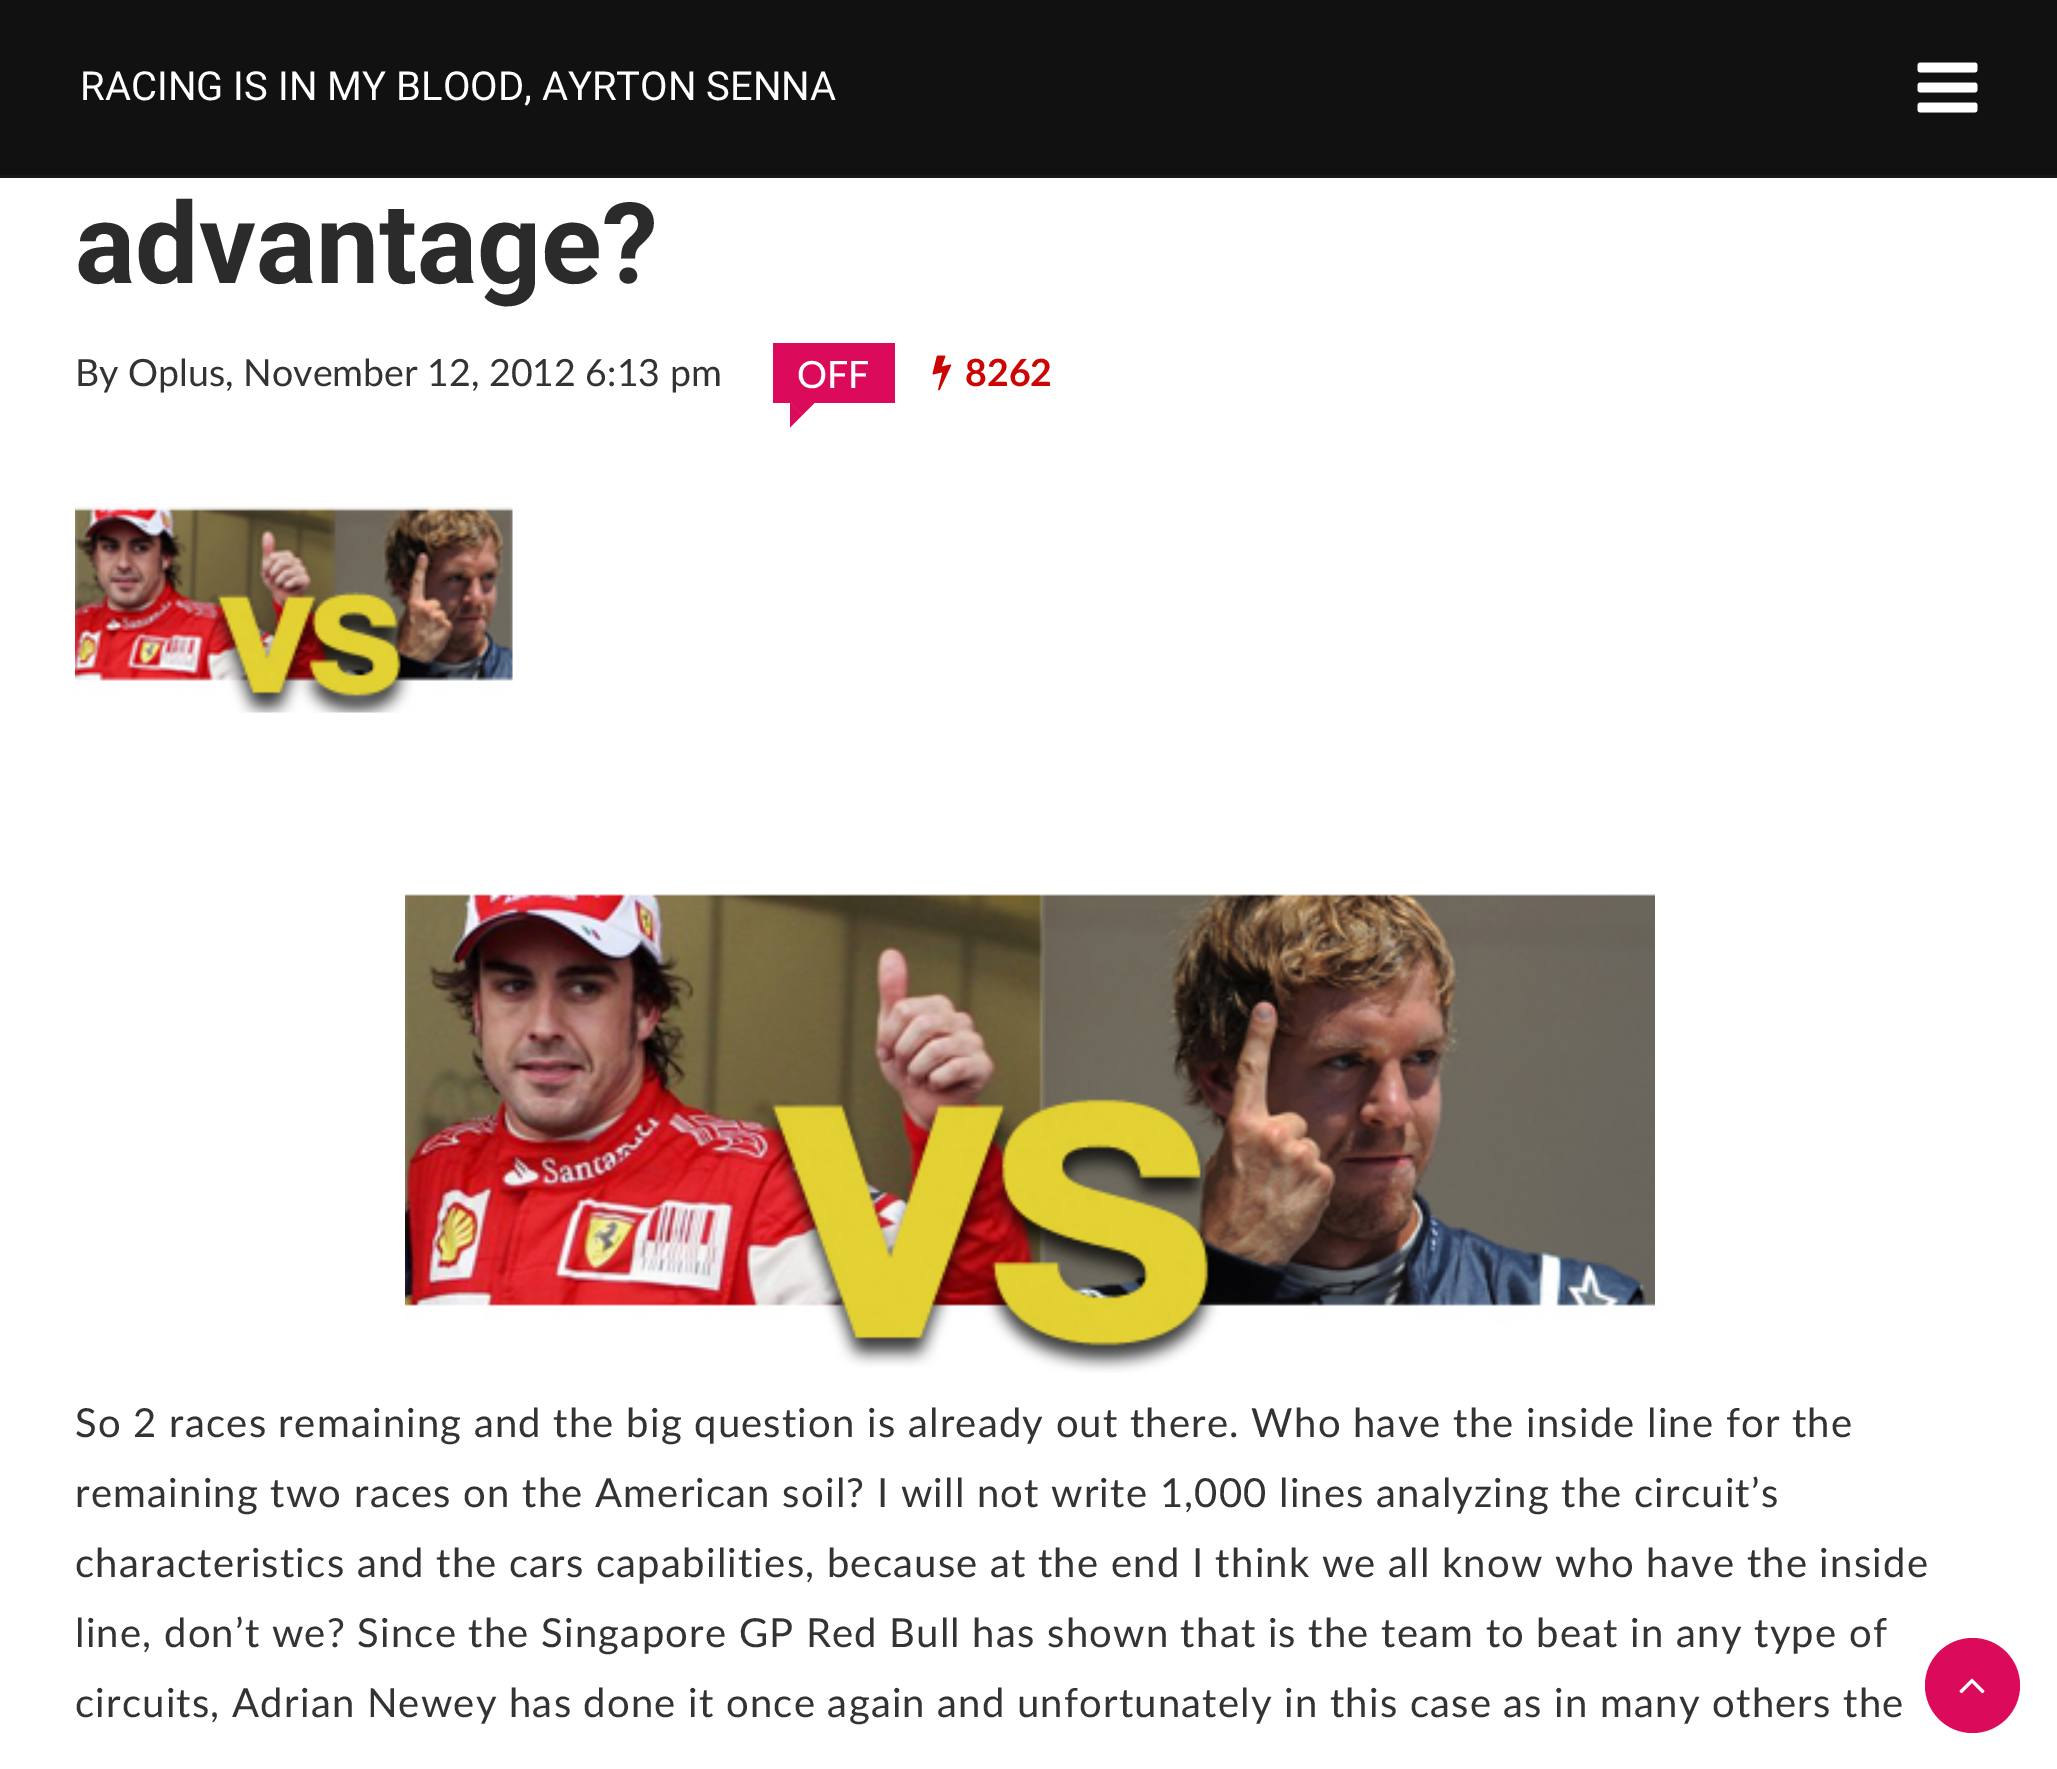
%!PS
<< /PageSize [2057 1769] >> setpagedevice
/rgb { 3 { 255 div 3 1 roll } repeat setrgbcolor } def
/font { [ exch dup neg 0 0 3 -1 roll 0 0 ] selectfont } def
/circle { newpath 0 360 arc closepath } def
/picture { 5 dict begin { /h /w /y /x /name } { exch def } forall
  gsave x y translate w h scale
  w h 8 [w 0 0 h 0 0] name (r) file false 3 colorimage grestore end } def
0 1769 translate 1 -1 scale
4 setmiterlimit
255 255 255 rgb
0 0 2057 1769 rectfill
17 17 17 rgb
0 0 2057 175 rectfill
25 25 25 rgb
0 175 2057 3 rectfill
(img/1.rgb) 1917 62 61 51 picture
219 10 91 rgb
773 343 122 60 rectfill
790 402.5 moveto 815 402.5 lineto 802.5 415 lineto closepath fill
790 427.5 moveto 790 402.5 lineto 802.5 415 lineto closepath fill
(img/2.rgb) 932 355 20 36 picture
(img/3.rgb) 75 503 438 210 picture
(img/4.rgb) 405 894 1250 479 picture
1972.5 1685.5 47.5 circle fill
(img/5.rgb) 1959 1678 26 16 picture
/Roboto-Regular 40 font
255 255 255 rgb
80 100 moveto (RACING IS IN MY BLOOD, AYRTON SENNA) show
/Roboto-Bold 112.5 font
43 43 43 rgb
75 283 moveto (advantage?) show
/Lato-Regular 37.5 font
51 51 51 rgb
75 386 moveto (By Oplus, November 12, 2012 6:13 pm) show
/Lato-Medium 37.5 font
255 255 255 rgb
797 388 moveto (OFF) show
/Lato-Bold 37.5 font
203 4 4 rgb
965 386 moveto (8262) show
/Lato-Regular 40 font
51 51 51 rgb
75 1437 moveto 1.2 0 (So 2 races remaining and the big question is already out there. Who have the inside line for the) ashow
75 1507 moveto 1.2 0 (remaining two races on the American soil? I will not write 1,000 lines analyzing the circuit’s) ashow
75 1577 moveto 1.2 0 (characteristics and the cars capabilities, because at the end I think we all know who have the inside) ashow
75 1647 moveto 1.2 0 (line, don’t we? Since the Singapore GP Red Bull has shown that is the team to beat in any type of) ashow
75 1717 moveto 1.2 0 (circuits, Adrian Newey has done it once again and unfortunately in this case as in many others the) ashow
showpage
